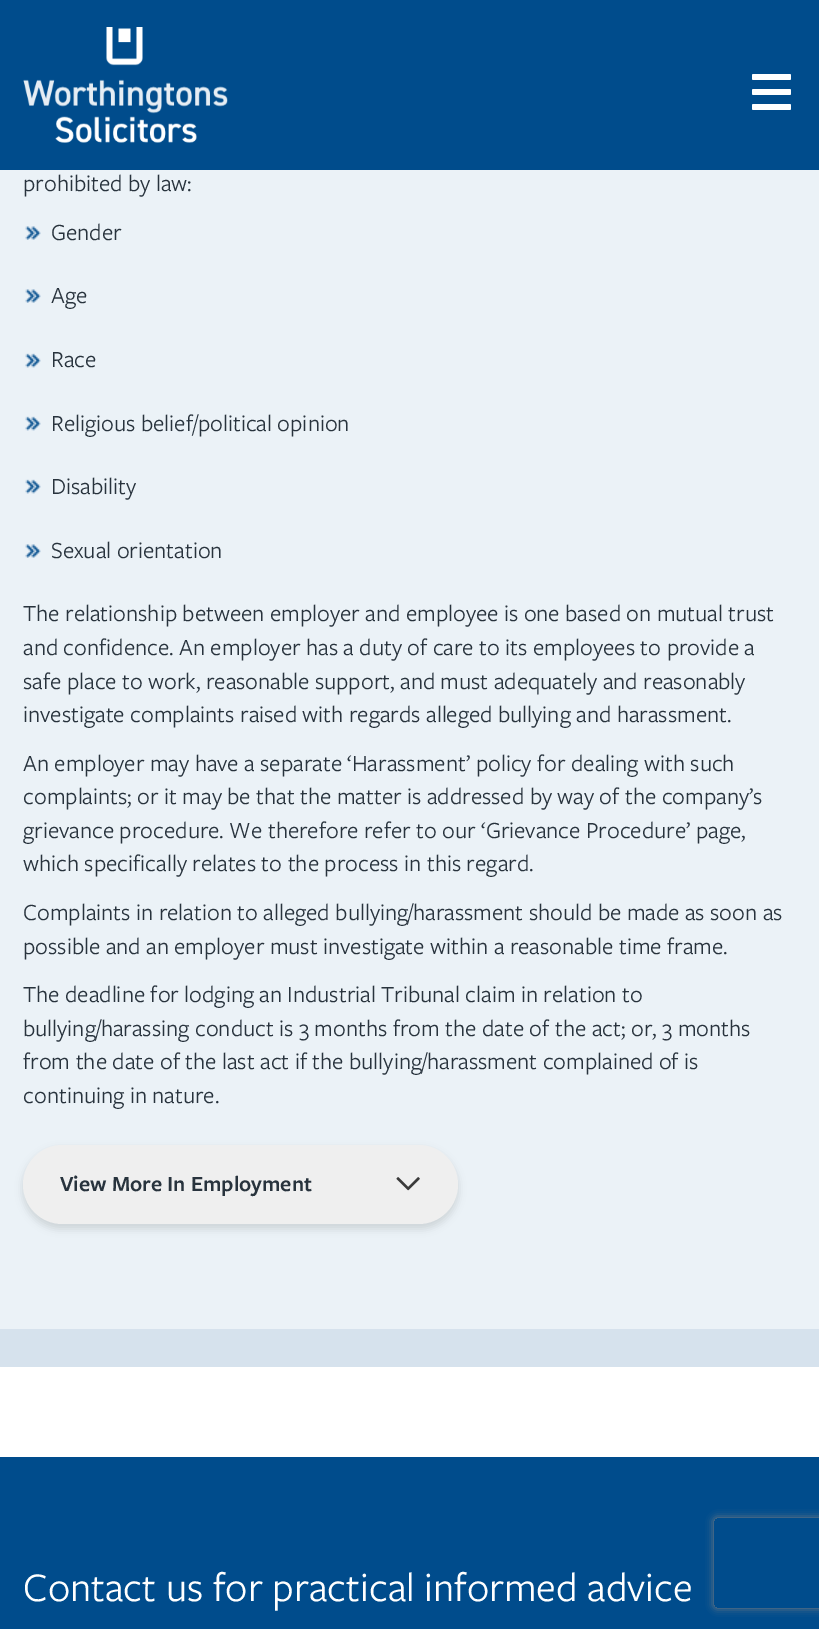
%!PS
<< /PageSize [819 1629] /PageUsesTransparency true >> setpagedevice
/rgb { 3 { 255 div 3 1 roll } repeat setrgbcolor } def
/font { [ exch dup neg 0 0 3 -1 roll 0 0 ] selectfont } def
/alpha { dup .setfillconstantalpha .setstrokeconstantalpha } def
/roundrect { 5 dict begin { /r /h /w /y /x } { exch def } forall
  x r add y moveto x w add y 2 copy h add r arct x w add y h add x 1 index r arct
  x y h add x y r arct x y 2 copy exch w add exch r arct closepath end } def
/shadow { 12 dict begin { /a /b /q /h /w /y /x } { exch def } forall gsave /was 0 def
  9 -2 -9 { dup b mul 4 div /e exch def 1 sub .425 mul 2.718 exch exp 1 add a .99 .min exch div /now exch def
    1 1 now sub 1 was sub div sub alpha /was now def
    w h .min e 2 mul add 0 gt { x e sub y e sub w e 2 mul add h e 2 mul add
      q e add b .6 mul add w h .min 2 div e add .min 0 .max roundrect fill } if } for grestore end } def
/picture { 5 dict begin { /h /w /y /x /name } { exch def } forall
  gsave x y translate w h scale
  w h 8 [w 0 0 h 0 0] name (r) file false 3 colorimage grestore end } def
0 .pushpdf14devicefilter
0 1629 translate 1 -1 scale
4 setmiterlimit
255 255 255 rgb
0 0 819 1629 rectfill
0 76 140 rgb
0 0 819 170 rectfill
(img/1.rgb) 23 27 205 116 picture
255 255 255 rgb
752 104 39 6 1.5 roundrect fill
752 74 39 6 1.5 roundrect fill
752 89 39 6 1.5 roundrect fill
235 242 247 rgb
0 170 819 1159 rectfill
(img/2.rgb) 25 226 16 14 picture
(img/2.rgb) 25 289 16 14 picture
(img/3.rgb) 25 353 16 15 picture
(img/3.rgb) 25 416 16 15 picture
(img/3.rgb) 25 479 16 15 picture
(img/2.rgb) 25 544 16 14 picture
0 0 0 rgb
23 1149 435 80 40 4 0.12 shadow
239 239 239 rgb
23 1145 435 79 39.5 roundrect fill
(img/4.rgb) 396 1177 24 14 picture
214 226 237 rgb
0 1329 819 38 rectfill
0 76 140 rgb
0 1457 819 172 rectfill
gsave
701 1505 moveto 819 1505 lineto 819 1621 lineto 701 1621 lineto closepath 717 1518 moveto 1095 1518 lineto 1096.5 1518 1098 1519.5 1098 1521 curveto 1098 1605 lineto 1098 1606.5 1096.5 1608 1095 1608 curveto 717 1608 lineto 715.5 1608 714 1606.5 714 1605 curveto 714 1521 lineto 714 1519.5 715.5 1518 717 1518 curveto closepath eoclip newpath
128 128 128 rgb
714 1518 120 90 3 4 1 shadow
grestore
/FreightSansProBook-Regular 24 font
40 51 61 rgb
[
  [(prohibited by law:) 23 191]
  [(Gender) 51 240]
  [(Age) 51 303]
  [(Race) 51 367]
  [(Religious belief/political opinion) 51 431]
  [(Disability) 51 494]
  [(Sexual orientation) 51 558]
  [(The relationship between employer and employee is one based on mutual trust) 23 621]
  [(and confidence. An employer has a duty of care to its employees to provide a) 23 655]
  [(safe place to work, reasonable support, and must adequately and reasonably) 23 689]
  [(investigate complaints raised with regards alleged bullying and harassment.) 23 722]
  [(An employer may have a separate ‘Harassment’ policy for dealing with such) 23 771]
  [(complaints; or it may be that the matter is addressed by way of the company’s) 23 804]
  [(grievance procedure. We therefore refer to our ‘Grievance Procedure’ page,) 23 838]
  [(which specifically relates to the process in this regard.) 23 871]
  [(Complaints in relation to alleged bullying/harassment should be made as soon as) 23 920]
  [(possible and an employer must investigate within a reasonable time frame.) 23 954]
  [(The deadline for lodging an Industrial Tribunal claim in relation to) 23 1002]
  [(bullying/harassing conduct is 3 months from the date of the act; or, 3 months) 23 1036]
  [(from the date of the last act if the bullying/harassment complained of is) 23 1069]
  [(continuing in nature.) 23 1103]
] { aload pop moveto show } forall
/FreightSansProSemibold-SemiBold 22.5 font
60 1191 moveto (View More In Employment) show
/FreightSansProBook-Regular 42 font
255 255 255 rgb
23 1601 moveto (Contact us for practical informed advice) show
.poppdf14devicefilter showpage
